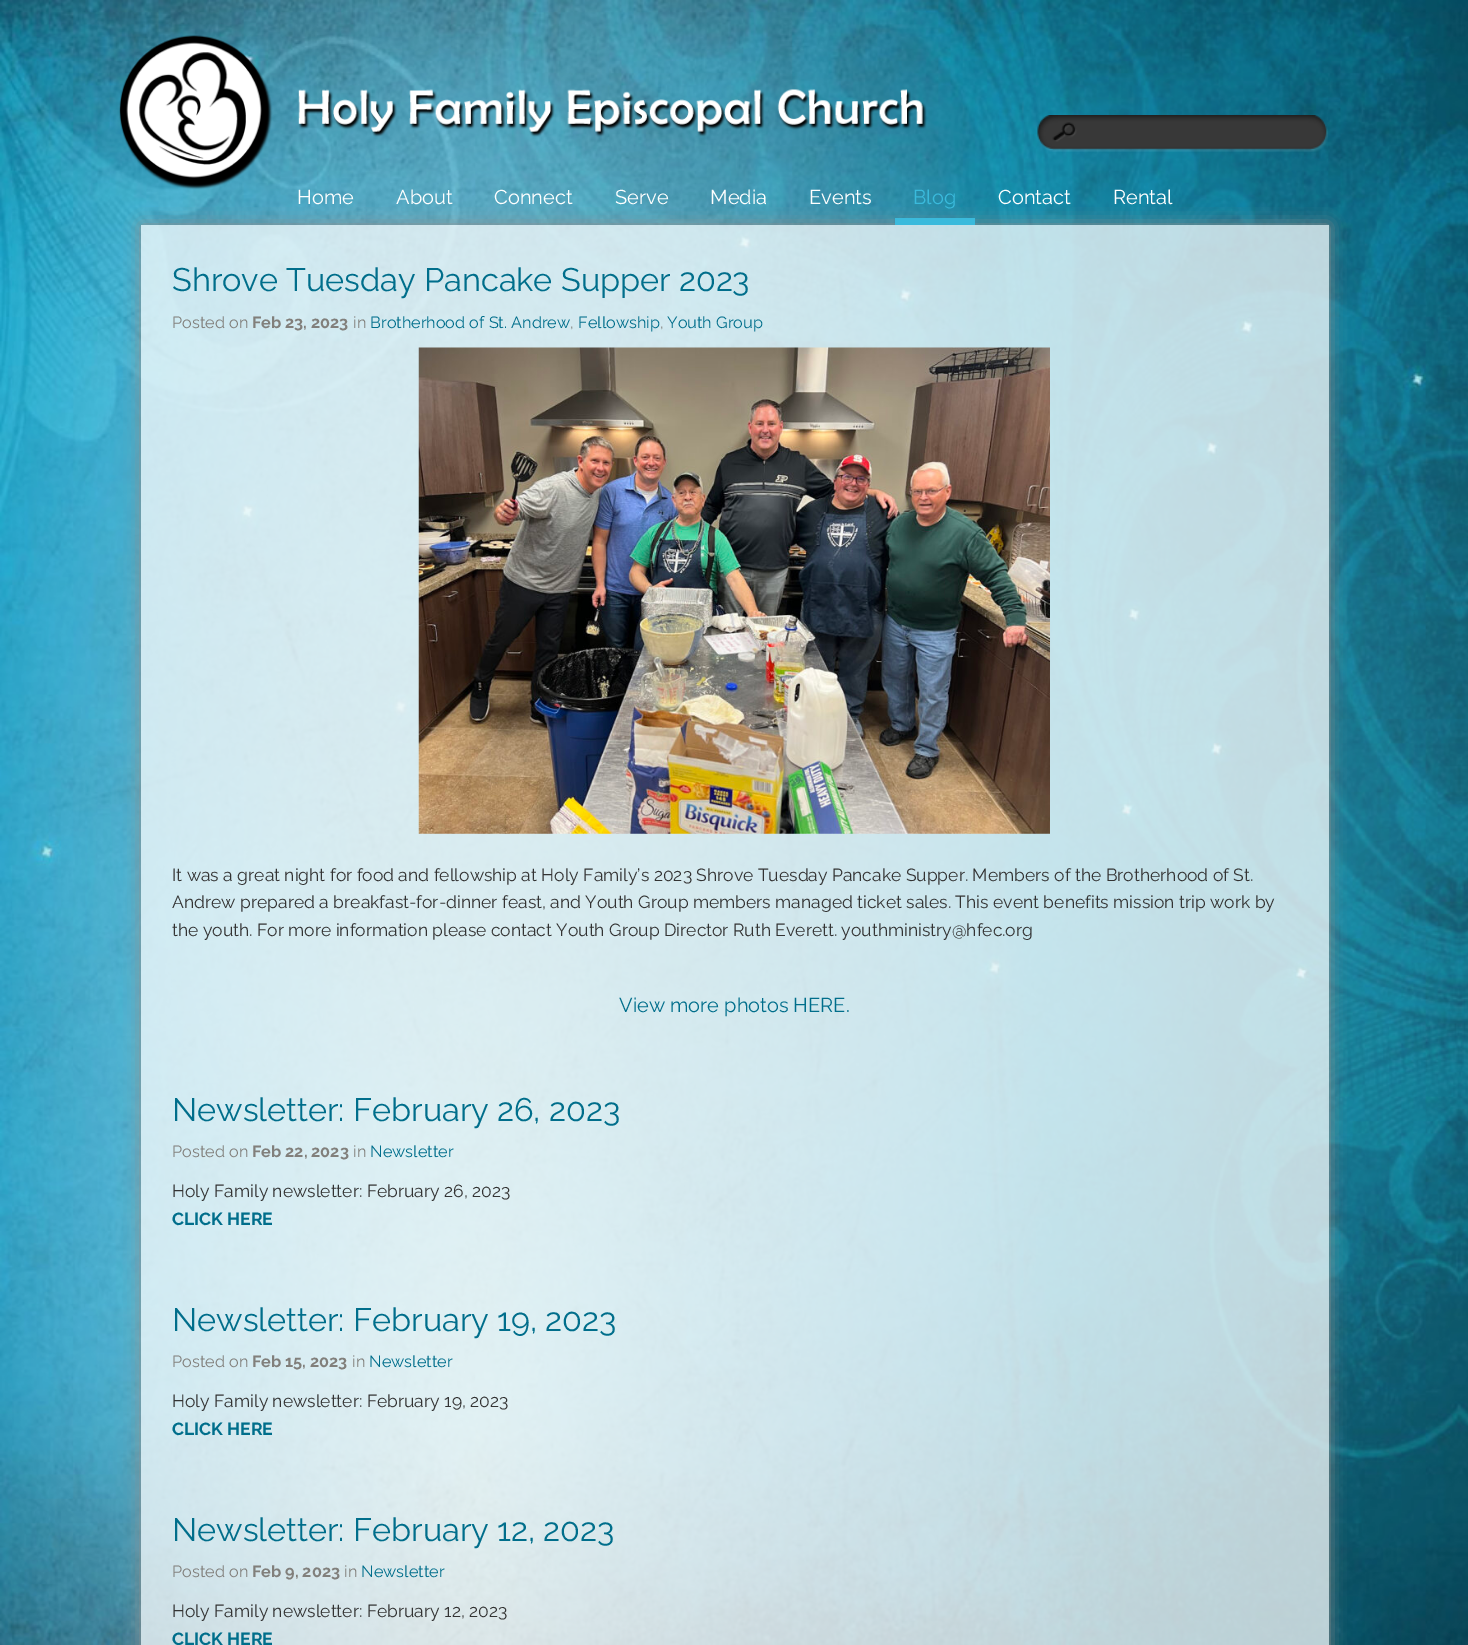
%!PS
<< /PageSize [1468 1645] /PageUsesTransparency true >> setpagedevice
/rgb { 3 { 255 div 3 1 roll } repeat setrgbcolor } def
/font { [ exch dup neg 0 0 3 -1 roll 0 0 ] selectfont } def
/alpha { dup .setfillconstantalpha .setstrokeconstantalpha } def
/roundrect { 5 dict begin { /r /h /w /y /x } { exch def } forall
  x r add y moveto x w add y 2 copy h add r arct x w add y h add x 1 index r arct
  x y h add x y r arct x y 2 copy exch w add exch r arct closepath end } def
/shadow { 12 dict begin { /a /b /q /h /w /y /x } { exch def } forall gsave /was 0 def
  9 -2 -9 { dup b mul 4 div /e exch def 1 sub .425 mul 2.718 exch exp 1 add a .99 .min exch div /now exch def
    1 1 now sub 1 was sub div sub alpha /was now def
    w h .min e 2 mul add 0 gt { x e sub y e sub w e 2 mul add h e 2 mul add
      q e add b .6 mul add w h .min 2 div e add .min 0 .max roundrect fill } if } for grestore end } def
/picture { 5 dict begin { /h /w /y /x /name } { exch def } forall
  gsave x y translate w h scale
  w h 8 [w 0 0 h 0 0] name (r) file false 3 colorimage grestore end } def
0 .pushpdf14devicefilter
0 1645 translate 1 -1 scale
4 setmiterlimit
255 255 255 rgb
0 0 1468 1645 rectfill
(img/1.rgb) 0 0 1468 1645 picture
(img/2.rgb) 0 0 1468 1645 picture
(img/3.rgb) 119 35 808 155 picture
(img/4.rgb) 1037 115 291 37 picture
gsave
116 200 moveto 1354 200 lineto 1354 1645 lineto 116 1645 lineto closepath 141 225 moveto 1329 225 lineto 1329 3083 lineto 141 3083 lineto closepath eoclip newpath
145 142 140 rgb
141 225 1188 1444 0 8 1 shadow
grestore
58 186 220 rgb
895 218 80 7 rectfill
0.73 alpha
255 255 255 rgb
141 225 1188 1420 rectfill
1 alpha
(img/5.rgb) 418 347 632 487 picture
/Raleway-Regular 20 font
[
  [(Home) 297 204]
  [(About) 396 204]
  [(Connect) 494 204]
  [(Serve) 615 204]
  [(Media) 710 204]
  [(Events) 809 204]
] { aload pop moveto show } forall
58 186 220 rgb
913 204 moveto (Blog) show
255 255 255 rgb
998 204 moveto (Contact) show
1113 204 moveto (Rental) show
/Raleway-Regular 32.5 font
0 110 139 rgb
172 291 moveto (Shrove Tuesday Pancake Supper 2023) show
/Raleway-Regular 16.25 font
129 127 123 rgb
172 328 moveto (Posted on) show
/Raleway-Bold 16.25 font
252 328 moveto (Feb 23, 2023) show
/Raleway-Regular 16.25 font
353 328 moveto (in) show
0 110 139 rgb
370 328 moveto (Brotherhood of St. Andrew) show
129 127 123 rgb
570 328 moveto (,) show
0 110 139 rgb
578 328 moveto (Fellowship) show
129 127 123 rgb
660 328 moveto (,) show
0 110 139 rgb
667 328 moveto (Youth Group) show
/Raleway-Regular 17.5 font
51 51 51 rgb
[
  [(It was a great night for food and fellowship at Holy Family’s 2023 Shrove Tuesday Pancake Supper. Members of the Brotherhood of St.) 172 881]
  [(Andrew prepared a breakfast-for-dinner feast, and Youth Group members managed ticket sales. This event benefits mission trip work by) 172 908]
  [(the youth. For more information please contact Youth Group Director Ruth Everett. youthministry@hfec.org) 172 936]
] { aload pop moveto show } forall
/Raleway-Regular 20 font
0 110 139 rgb
619 1012 moveto (View more photos HERE.) show
/Raleway-Regular 32.5 font
172 1121 moveto (Newsletter: February 26, 2023) show
/Raleway-Regular 16.25 font
129 127 123 rgb
172 1157 moveto (Posted on) show
/Raleway-Bold 16.25 font
252 1157 moveto (Feb 22, 2023) show
/Raleway-Regular 16.25 font
353 1157 moveto (in) show
0 110 139 rgb
370 1157 moveto (Newsletter) show
/Raleway-Regular 17.5 font
51 51 51 rgb
172 1197 moveto (Holy Family newsletter: February 26, 2023) show
/Raleway-Bold 17.5 font
0 110 139 rgb
172 1225 moveto (CLICK HERE) show
/Raleway-Regular 32.5 font
172 1331 moveto (Newsletter: February 19, 2023) show
/Raleway-Regular 16.25 font
129 127 123 rgb
172 1367 moveto (Posted on) show
/Raleway-Bold 16.25 font
252 1367 moveto (Feb 15, 2023) show
/Raleway-Regular 16.25 font
352 1367 moveto (in) show
0 110 139 rgb
369 1367 moveto (Newsletter) show
/Raleway-Regular 17.5 font
51 51 51 rgb
172 1407 moveto (Holy Family newsletter: February 19, 2023) show
/Raleway-Bold 17.5 font
0 110 139 rgb
172 1435 moveto (CLICK HERE) show
/Raleway-Regular 32.5 font
172 1541 moveto (Newsletter: February 12, 2023) show
/Raleway-Regular 16.25 font
129 127 123 rgb
172 1577 moveto (Posted on) show
/Raleway-Bold 16.25 font
252 1577 moveto (Feb 9, 2023) show
/Raleway-Regular 16.25 font
344 1577 moveto (in) show
0 110 139 rgb
361 1577 moveto (Newsletter) show
/Raleway-Regular 17.5 font
51 51 51 rgb
172 1617 moveto (Holy Family newsletter: February 12, 2023) show
/Raleway-Bold 17.5 font
0 110 139 rgb
172 1645 moveto (CLICK HERE) show
.poppdf14devicefilter showpage
